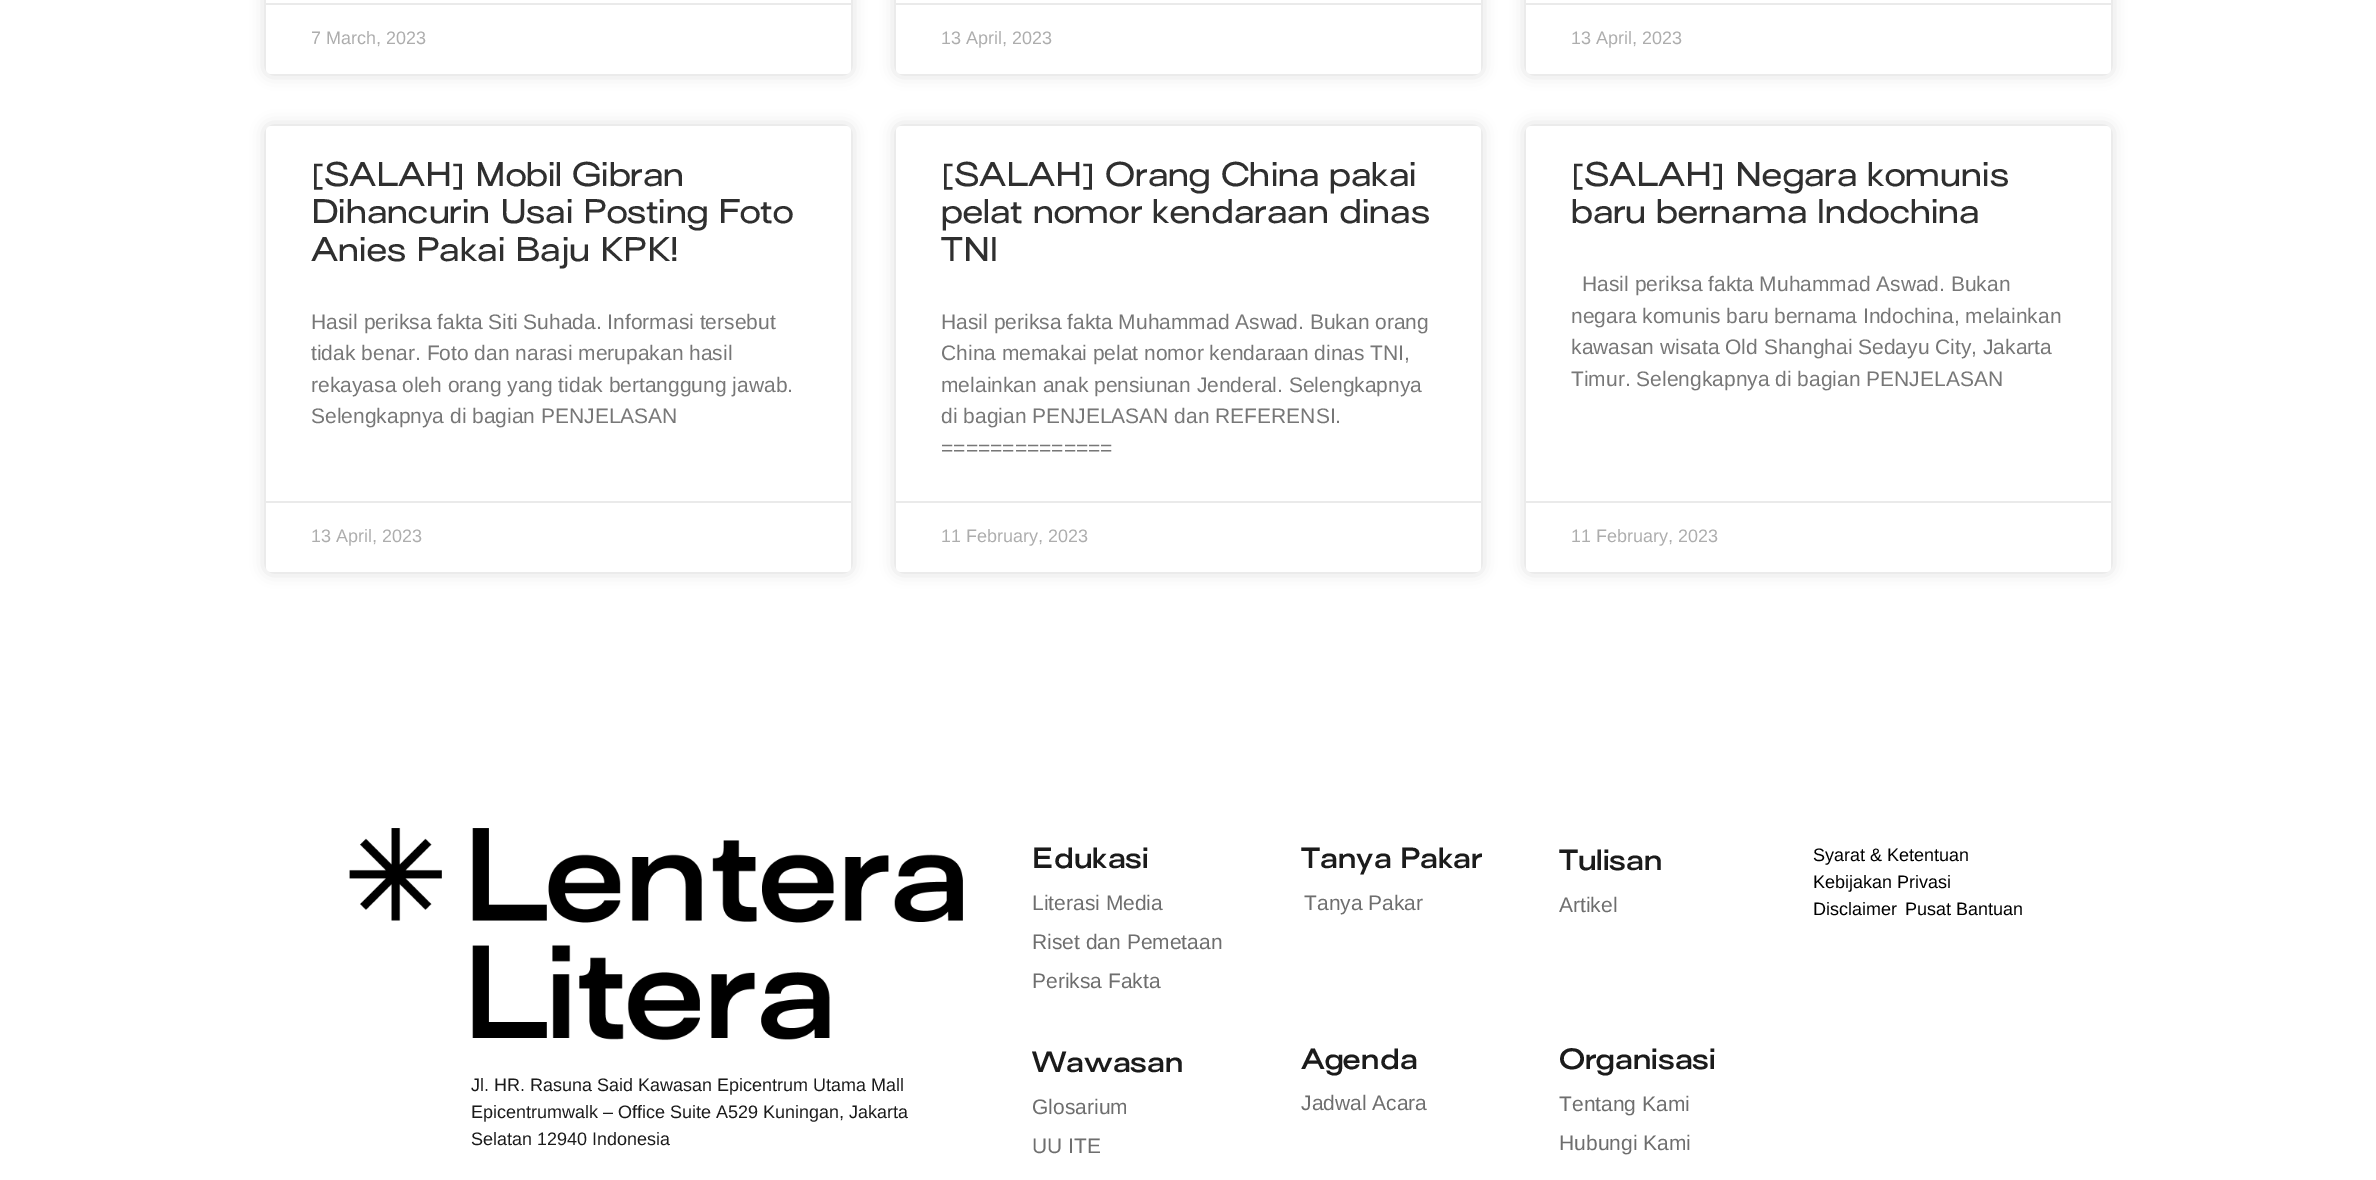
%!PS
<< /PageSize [2376 1180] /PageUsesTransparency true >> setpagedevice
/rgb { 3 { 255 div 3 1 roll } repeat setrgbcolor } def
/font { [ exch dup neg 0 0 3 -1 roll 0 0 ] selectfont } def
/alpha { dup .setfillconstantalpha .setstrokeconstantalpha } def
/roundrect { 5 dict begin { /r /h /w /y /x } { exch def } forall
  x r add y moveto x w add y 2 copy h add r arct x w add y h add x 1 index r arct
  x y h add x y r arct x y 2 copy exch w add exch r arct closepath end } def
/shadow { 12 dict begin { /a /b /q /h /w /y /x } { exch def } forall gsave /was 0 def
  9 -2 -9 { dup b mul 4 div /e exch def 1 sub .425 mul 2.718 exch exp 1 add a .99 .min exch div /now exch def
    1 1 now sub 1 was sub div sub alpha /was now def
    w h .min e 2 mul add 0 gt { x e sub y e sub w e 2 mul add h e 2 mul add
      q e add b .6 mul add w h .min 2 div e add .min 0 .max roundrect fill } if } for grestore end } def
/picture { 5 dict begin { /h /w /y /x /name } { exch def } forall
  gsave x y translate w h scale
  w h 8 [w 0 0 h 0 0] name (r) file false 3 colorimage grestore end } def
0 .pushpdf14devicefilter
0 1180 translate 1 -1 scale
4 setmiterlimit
255 255 255 rgb
0 0 2376 1180 rectfill
0 0 0 rgb
266 -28 585 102 5 7.5 0.15 shadow
255 255 255 rgb
266 -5 585 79 5 roundrect fill
234 234 234 rgb
266 3 585 2 rectfill
0 0 0 rgb
896 -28 585 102 5 7.5 0.15 shadow
255 255 255 rgb
896 -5 585 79 5 roundrect fill
234 234 234 rgb
896 3 585 2 rectfill
0 0 0 rgb
1526 -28 585 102 5 7.5 0.15 shadow
255 255 255 rgb
1526 -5 585 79 5 roundrect fill
234 234 234 rgb
1526 3 585 2 rectfill
0 0 0 rgb
266 126 585 446 5 7.5 0.15 shadow
255 255 255 rgb
266 126 585 446 5 roundrect fill
234 234 234 rgb
266 501 585 2 rectfill
0 0 0 rgb
896 126 585 446 5 7.5 0.15 shadow
255 255 255 rgb
896 126 585 446 5 roundrect fill
234 234 234 rgb
896 501 585 2 rectfill
0 0 0 rgb
1526 126 585 446 5 7.5 0.15 shadow
255 255 255 rgb
1526 126 585 446 5 roundrect fill
234 234 234 rgb
1526 501 585 2 rectfill
(img/1.rgb) 349 828 614 213 picture
/LiberationSans-Regular 18 font
173 173 173 rgb
[
  [(7 March, 2023) 311 44]
  [(13 April, 2023) 941 44]
  [(13 April, 2023) 1571 44]
] { aload pop moveto show } forall
/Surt-Medium 31.5 font
47 47 47 rgb
[
  [([SALAH] Mobil Gibran) 311 186]
  [(Dihancurin Usai Posting Foto) 311 223]
  [(Anies Pakai Baju KPK!) 311 261]
] { aload pop moveto show } forall
/LiberationSans-Regular 21 font
119 119 119 rgb
[
  [(Hasil periksa fakta Siti Suhada. Informasi tersebut) 311 329]
  [(tidak benar. Foto dan narasi merupakan hasil) 311 360]
  [(rekayasa oleh orang yang tidak bertanggung jawab.) 311 392]
  [(Selengkapnya di bagian PENJELASAN) 311 423]
] { aload pop moveto show } forall
/LiberationSans-Regular 18 font
173 173 173 rgb
311 542 moveto (13 April, 2023) show
/Surt-Medium 31.5 font
47 47 47 rgb
[
  [([SALAH] Orang China pakai) 941 186]
  [(pelat nomor kendaraan dinas) 941 223]
  [(TNI) 941 261]
] { aload pop moveto show } forall
/LiberationSans-Regular 21 font
119 119 119 rgb
[
  [(Hasil periksa fakta Muhammad Aswad. Bukan orang) 941 329]
  [(China memakai pelat nomor kendaraan dinas TNI,) 941 360]
  [(melainkan anak pensiunan Jenderal. Selengkapnya) 941 392]
  [(di bagian PENJELASAN dan REFERENSI.) 941 423]
  [(==============) 941 455]
] { aload pop moveto show } forall
/LiberationSans-Regular 18 font
173 173 173 rgb
941 542 moveto (11 February, 2023) show
/Surt-Medium 31.5 font
47 47 47 rgb
1571 186 moveto ([SALAH] Negara komunis) show
1571 223 moveto (baru bernama Indochina) show
/LiberationSans-Regular 21 font
119 119 119 rgb
[
  [(Hasil periksa fakta Muhammad Aswad. Bukan) 1582 291]
  [(negara komunis baru bernama Indochina, melainkan) 1571 323]
  [(kawasan wisata Old Shanghai Sedayu City, Jakarta) 1571 354]
  [(Timur. Selengkapnya di bagian PENJELASAN) 1571 386]
] { aload pop moveto show } forall
/LiberationSans-Regular 18 font
173 173 173 rgb
1571 542 moveto (11 February, 2023) show
27 27 27 rgb
[
  [(Jl. HR. Rasuna Said Kawasan Epicentrum Utama Mall) 471 1091]
  [(Epicentrumwalk – Office Suite A529 Kuningan, Jakarta) 471 1118]
  [(Selatan 12940 Indonesia) 471 1145]
] { aload pop moveto show } forall
/Surt-SemiBold 27 font
1032 868 moveto (Edukasi) show
/LiberationSans-Regular 21 font
110 110 110 rgb
[
  [(Literasi Media) 1032 910]
  [(Riset dan Pemetaan) 1032 949]
  [(Periksa Fakta) 1032 988]
] { aload pop moveto show } forall
/Surt-SemiBold 27 font
27 27 27 rgb
1032 1072 moveto (Wawasan) show
/LiberationSans-Regular 21 font
110 110 110 rgb
1032 1114 moveto (Glosarium) show
1032 1153 moveto (UU ITE) show
/Surt-SemiBold 27 font
27 27 27 rgb
1301 868 moveto (Tanya Pakar) show
/LiberationSans-Regular 21 font
110 110 110 rgb
1304 910 moveto (Tanya Pakar) show
/Surt-SemiBold 27 font
27 27 27 rgb
1301 1069 moveto (Agenda) show
/LiberationSans-Regular 21 font
110 110 110 rgb
1301 1110 moveto (Jadwal Acara) show
/Surt-SemiBold 27 font
27 27 27 rgb
1559 870 moveto (Tulisan) show
/LiberationSans-Regular 21 font
110 110 110 rgb
1559 912 moveto (Artikel) show
/Surt-SemiBold 27 font
27 27 27 rgb
1559 1069 moveto (Organisasi) show
/LiberationSans-Regular 21 font
110 110 110 rgb
1559 1111 moveto (Tentang Kami) show
1559 1150 moveto (Hubungi Kami) show
/LiberationSans-Regular 18 font
0 0 0 rgb
[
  [(Syarat & Ketentuan) 1813 861]
  [(Kebijakan Privasi) 1813 888]
  [(Disclaimer) 1813 915]
  [(Pusat Bantuan) 1905 915]
] { aload pop moveto show } forall
.poppdf14devicefilter showpage
